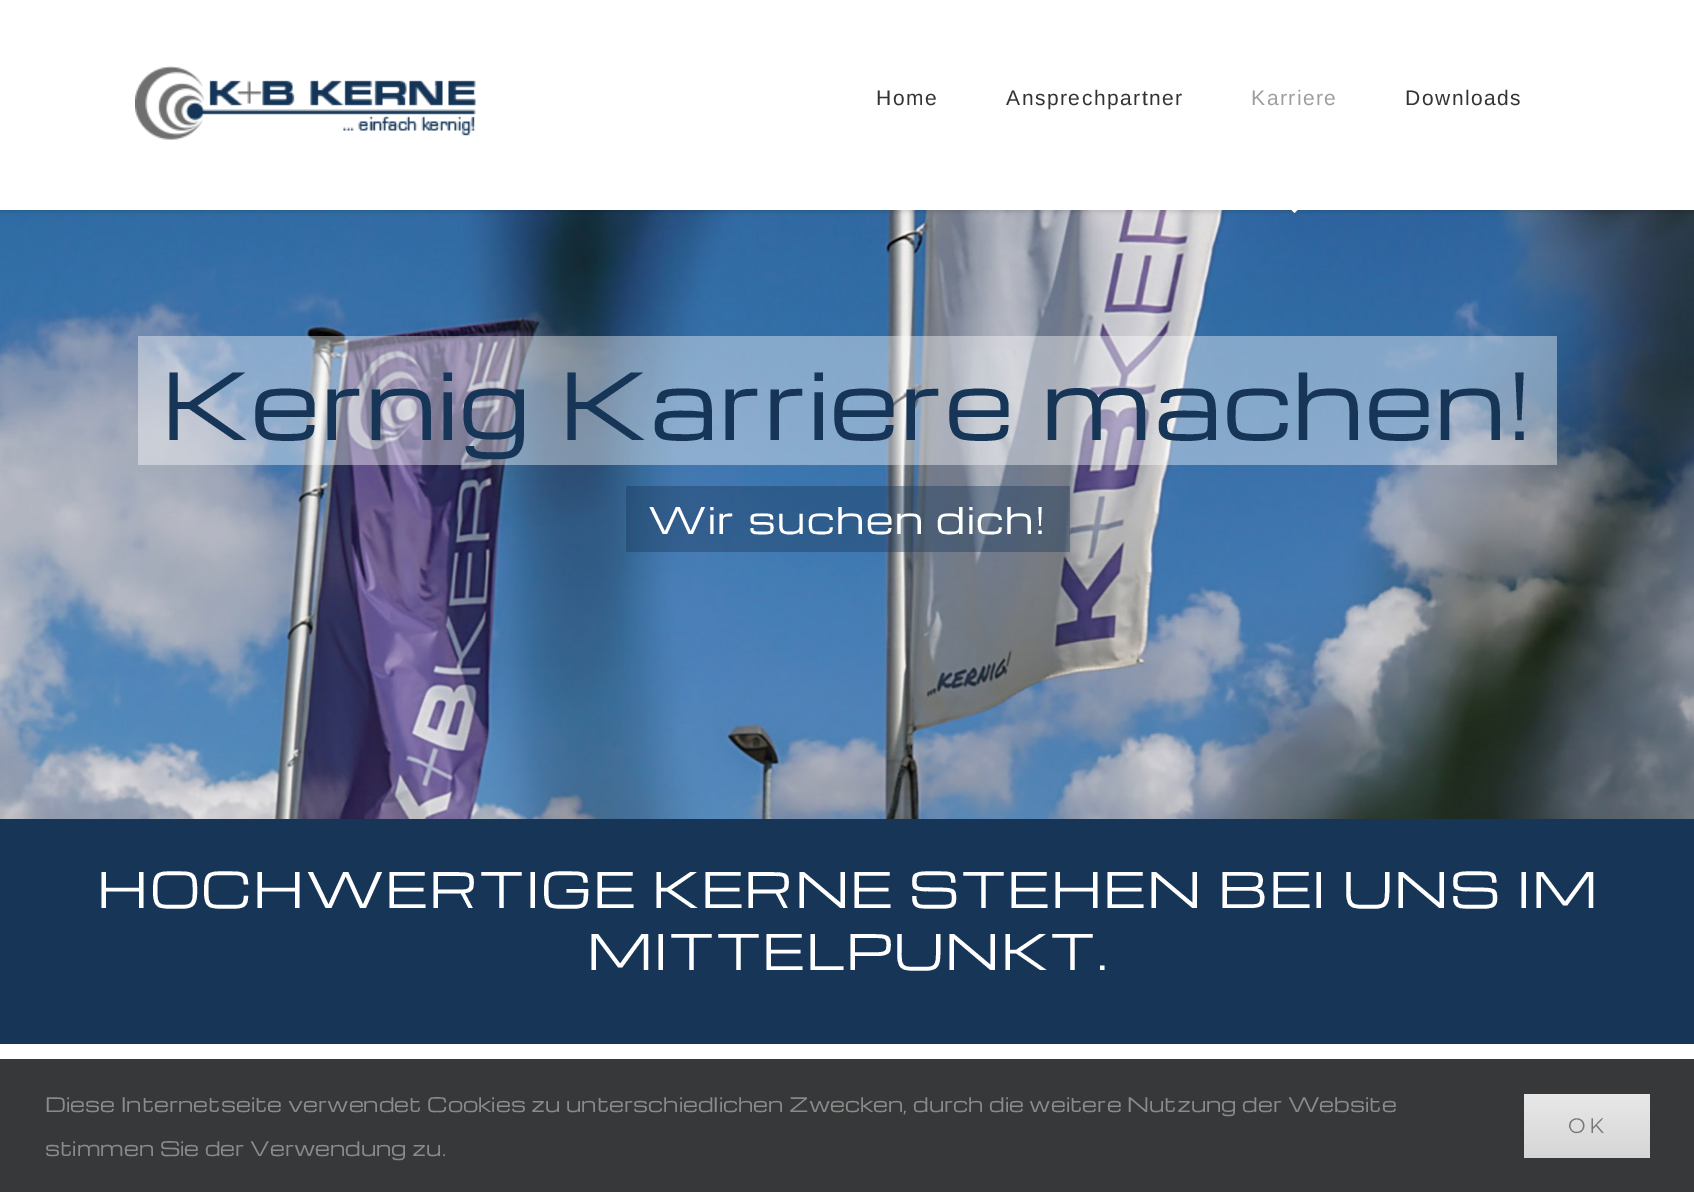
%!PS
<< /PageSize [1694 1192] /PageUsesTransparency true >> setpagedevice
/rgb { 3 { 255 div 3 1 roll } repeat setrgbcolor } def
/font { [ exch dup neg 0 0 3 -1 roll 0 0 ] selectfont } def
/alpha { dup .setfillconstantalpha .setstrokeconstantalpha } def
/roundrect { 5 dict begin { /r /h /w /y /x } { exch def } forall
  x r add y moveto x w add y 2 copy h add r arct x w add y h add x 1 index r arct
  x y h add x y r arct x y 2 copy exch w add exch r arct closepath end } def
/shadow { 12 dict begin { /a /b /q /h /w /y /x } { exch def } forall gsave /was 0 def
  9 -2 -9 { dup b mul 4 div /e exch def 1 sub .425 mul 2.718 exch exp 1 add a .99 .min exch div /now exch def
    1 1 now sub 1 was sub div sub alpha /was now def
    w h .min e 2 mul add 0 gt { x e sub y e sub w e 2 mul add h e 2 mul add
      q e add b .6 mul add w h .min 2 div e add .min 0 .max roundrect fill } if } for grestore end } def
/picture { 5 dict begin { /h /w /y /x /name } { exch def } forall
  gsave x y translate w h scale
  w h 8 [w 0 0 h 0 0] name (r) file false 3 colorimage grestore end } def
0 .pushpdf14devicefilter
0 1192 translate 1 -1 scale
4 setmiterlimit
255 255 255 rgb
0 0 1694 1192 rectfill
(img/2.rgb) 0 210 1694 609 picture
0 0 0 rgb
0 2 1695 210 0 2 0.12 shadow
255 255 255 rgb
0 0 1694 210 rectfill
(img/1.rgb) 135 66 341 74 picture
1277 195 moveto 1294.5 213 lineto 1312 195 lineto closepath fill
0.4 alpha
[
  [138 336 1419 129 255 255 255]
  [626 486 444 66 23 53 87]
] { aload pop rgb rectfill } forall
1 alpha
[
  [0 819 1694 225 23 53 87]
  [0 1059 1694 133 54 56 57]
] { aload pop rgb rectfill } forall
gsave 1524 1094 moveto 1650 1094 lineto 1650 1158 lineto 1524 1158 lineto closepath clip newpath
<< /ShadingType 2 /ColorSpace /DeviceRGB /Coords [1587 1094 1587 1158] /Extend [true true] /Function << /FunctionType 2 /Domain [0 1] /C0 [0.91 0.91 0.91] /C1 [0.839 0.839 0.839] /N 1 >> >> shfill grestore
/LiberationSans-Regular 21 font
51 51 51 rgb
876 105 moveto 1.5 0 (Home) ashow
1006 105 moveto 1.5 0 (Ansprechpartner) ashow
158 158 158 rgb
1251 105 moveto 1.5 0 (Karriere) ashow
51 51 51 rgb
1405 105 moveto 1.5 0 (Downloads) ashow
/Michroma-Regular 90 font
23 53 87 rgb
161 440 moveto 1.5 0 (Kernig Karriere machen!) ashow
/Michroma-Regular 36 font
255 255 255 rgb
648 534 moveto 1.5 0 (Wir suchen dich!) ashow
/Michroma-Regular 48 font
97 908 moveto 1.5 0 (HOCHWERTIGE KERNE STEHEN BEI UNS IM) ashow
587 970 moveto 1.5 0 (MITTELPUNKT.) ashow
/Michroma-Regular 19.5 font
140 137 137 rgb
45 1112 moveto (Diese Internetseite verwendet Cookies zu unterschiedlichen Zwecken, durch die weitere Nutzung der Website) show
45 1156 moveto (stimmen Sie der Verwendung zu.) show
/Montserrat-Thin 21 font
120 120 120 rgb
1568 1133 moveto 3 0 (OK) ashow
.poppdf14devicefilter showpage
